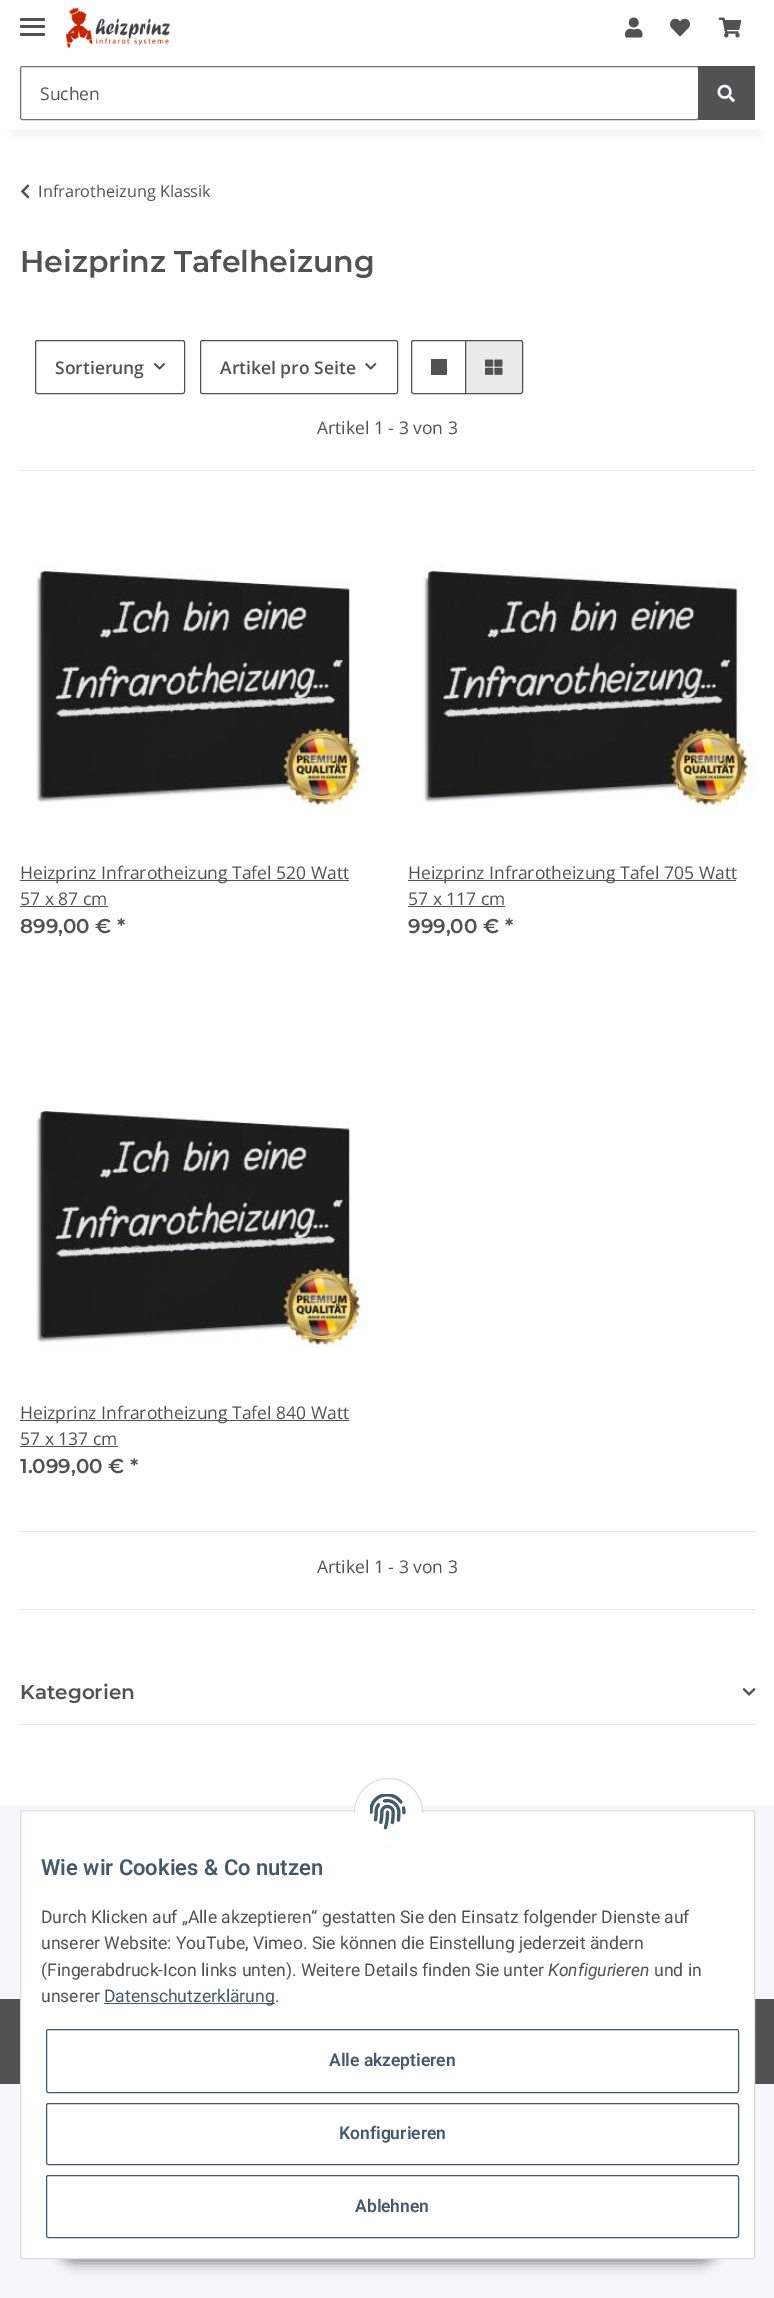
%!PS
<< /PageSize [774 2298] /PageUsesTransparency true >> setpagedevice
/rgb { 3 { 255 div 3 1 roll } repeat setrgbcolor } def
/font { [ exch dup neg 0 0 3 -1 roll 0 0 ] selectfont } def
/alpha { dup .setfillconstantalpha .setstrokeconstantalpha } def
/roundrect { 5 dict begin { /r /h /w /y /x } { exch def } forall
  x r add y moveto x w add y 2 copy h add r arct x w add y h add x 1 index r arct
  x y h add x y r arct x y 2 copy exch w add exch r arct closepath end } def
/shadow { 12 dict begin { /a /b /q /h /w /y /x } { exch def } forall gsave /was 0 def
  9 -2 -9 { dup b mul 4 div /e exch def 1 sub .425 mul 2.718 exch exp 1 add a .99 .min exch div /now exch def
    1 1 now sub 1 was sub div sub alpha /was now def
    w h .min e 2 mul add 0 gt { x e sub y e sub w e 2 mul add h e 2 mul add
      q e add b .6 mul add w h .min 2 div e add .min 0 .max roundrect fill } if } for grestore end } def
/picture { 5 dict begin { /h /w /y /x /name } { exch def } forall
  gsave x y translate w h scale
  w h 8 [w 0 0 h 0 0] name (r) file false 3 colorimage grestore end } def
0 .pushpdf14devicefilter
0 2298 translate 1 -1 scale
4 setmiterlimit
245 247 250 rgb
0 0 774 2298 rectfill
255 255 255 rgb
0 130 774 1675 rectfill
0 0 0 rgb
15 35 745 100 0 5.5 0.06 shadow
255 255 255 rgb
0 0 774 130 rectfill
82 82 82 rgb
20 25 25 3 1.5 roundrect fill
20 18 25 3 1.5 roundrect fill
20 33 25 3 1.5 roundrect fill
(img/1.rgb) 65 7 105 41 picture
(img/2.rgb) 625 17 18 21 picture
(img/3.rgb) 670 18 20 19 picture
(img/4.rgb) 718 17 24 21 picture
112 112 112 rgb
20.5 66.5 678 53 2 roundrect stroke
82 82 82 rgb
698 66 57 54 rectfill
(img/5.rgb) 717 84 18 19 picture
(img/6.rgb) 20 184 10 15 picture
35.5 340.5 149 53 2 roundrect stroke
(img/7.rgb) 154 363 11 7 picture
200.5 340.5 197 53 2 roundrect stroke
(img/8.rgb) 365 363 12 7 picture
413.5 340.5 moveto 465.5 340.5 lineto 465.5 393.5 lineto 413.5 393.5 lineto 412.5 393.5 411.5 392.5 411.5 391.5 curveto 411.5 342.5 lineto 411.5 341.5 412.5 340.5 413.5 340.5 curveto closepath stroke
431 359 16 16 rectfill
235 235 235 rgb
465.5 340.5 moveto 520.5 340.5 lineto 521.5 340.5 522.5 341.5 522.5 342.5 curveto 522.5 391.5 lineto 522.5 392.5 521.5 393.5 520.5 393.5 curveto 465.5 393.5 lineto closepath gsave fill grestore
82 82 82 rgb
stroke
(img/9.rgb) 485 359 18 16 picture
230 230 230 rgb
20 470 735 1 rectfill
(img/10.rgb) 36 565 332 243 picture
82 82 82 rgb
20 880 329 1 rectfill
20 906 88 1 rectfill
(img/11.rgb) 423 565 332 243 picture
408 880 328 1 rectfill
408 906 97 1 rectfill
(img/10.rgb) 36 1105 332 243 picture
[
  [20 1420 329 1 82 82 82]
  [20 1446 98 1 82 82 82]
  [20 1531 735 1 230 230 230]
  [20 1609 735 1 230 230 230]
] { aload pop rgb rectfill } forall
(img/12.rgb) 742 1688 14 8 picture
20 1724 735 1 rectfill
0 0 0 rgb
58 2223 660 40 20 6 0.45 shadow
82 82 82 rgb
0 1999 774 85 rectfill
255 255 255 rgb
20.5 1810.5 734 448 2 roundrect gsave fill grestore
221 221 221 rgb
stroke
255 255 255 rgb
354.5 1778.5 68 67 33.5 roundrect gsave fill grestore
221 221 221 rgb
stroke
255 255 255 rgb
354 1813 69 33 rectfill
(img/13.rgb) 370 1794 36 36 picture
67 90 107 rgb
104 2003 171 1 rectfill
46.5 2029.5 692 63 2 roundrect stroke
46.5 2103.5 692 61 2 roundrect stroke
46.5 2175.5 692 62 2 roundrect stroke
/OpenSans-Regular 17.5 font
82 82 82 rgb
40 100 moveto (Suchen) show
/OpenSans-Regular 16.25 font
38 197 moveto (Infrarotheizung Klassik) show
/Montserrat-SemiBold 30 font
20 272 moveto (Heizprinz Tafelheizung) show
/OpenSans-SemiBold 17.5 font
55 374 moveto (Sortierung) show
220 374 moveto (Artikel pro Seite) show
/OpenSans-Regular 17.5 font
[
  [(Artikel 1 - 3 von 3) 317 434]
  [(Heizprinz Infrarotheizung Tafel 520 Watt) 20 879]
  [(57 x 87 cm) 20 905]
] { aload pop moveto show } forall
/Montserrat-SemiBold 20 font
20 933 moveto (899,00 € *) show
/OpenSans-Regular 17.5 font
408 879 moveto (Heizprinz Infrarotheizung Tafel 705 Watt) show
408 905 moveto (57 x 117 cm) show
/Montserrat-SemiBold 20 font
408 933 moveto (999,00 € *) show
/OpenSans-Regular 17.5 font
20 1419 moveto (Heizprinz Infrarotheizung Tafel 840 Watt) show
20 1445 moveto (57 x 137 cm) show
/Montserrat-SemiBold 20 font
20 1473 moveto (1.099,00 € *) show
/OpenSans-Regular 17.5 font
317 1573 moveto (Artikel 1 - 3 von 3) show
/Montserrat-SemiBold 20 font
20 1699 moveto (Kategorien) show
/Roboto-SemiBold 22 font
67 90 107 rgb
41 1875 moveto (Wie wir Cookies & Co nutzen) show
/Roboto-Regular 17.5 font
82 82 82 rgb
[
  [(Durch Klicken auf „Alle akzeptieren“ gestatten Sie den Einsatz folgender Dienste auf) 41 1923]
  [(unserer Website: YouTube, Vimeo. Sie können die Einstellung jederzeit ändern) 41 1949]
  [(\(Fingerabdruck-Icon links unten\). Weitere Details finden Sie unter) 41 1976]
] { aload pop moveto show } forall
/Roboto-Italic 17.5 font
548 1976 moveto (Konfigurieren) show
/Roboto-Regular 17.5 font
654 1976 moveto (und in) show
41 2002 moveto (unserer) show
67 90 107 rgb
104 2002 moveto (Datenschutzerklärung) show
82 82 82 rgb
275 2002 moveto (.) show
/Roboto-SemiBold 17.5 font
67 90 107 rgb
[
  [(Alle akzeptieren) 329 2066]
  [(Konfigurieren) 339 2139]
  [(Ablehnen) 355 2212]
] { aload pop moveto show } forall
.poppdf14devicefilter showpage
